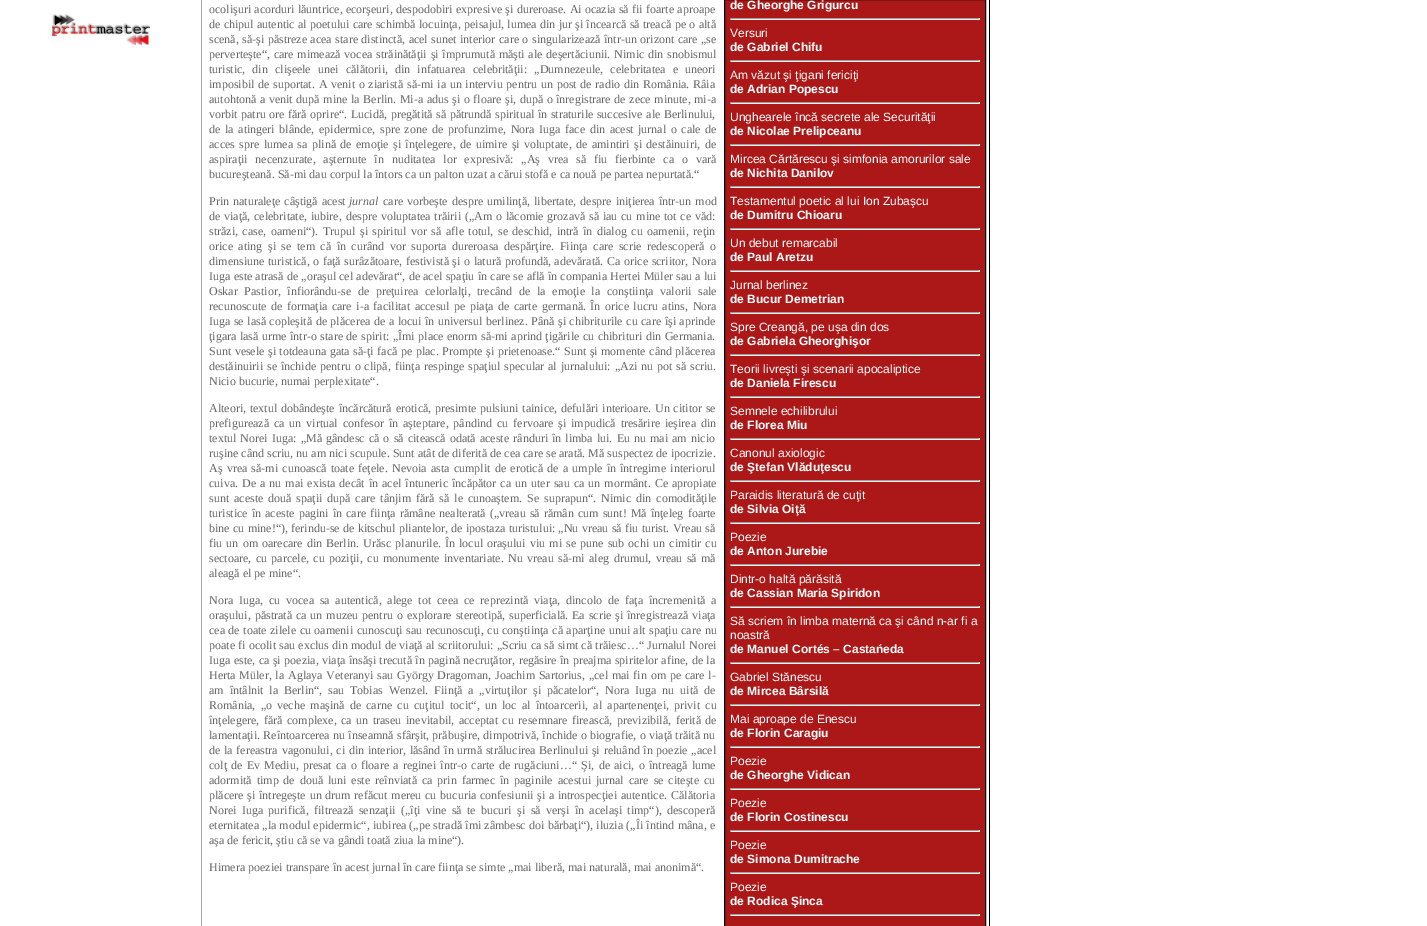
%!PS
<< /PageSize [1427 926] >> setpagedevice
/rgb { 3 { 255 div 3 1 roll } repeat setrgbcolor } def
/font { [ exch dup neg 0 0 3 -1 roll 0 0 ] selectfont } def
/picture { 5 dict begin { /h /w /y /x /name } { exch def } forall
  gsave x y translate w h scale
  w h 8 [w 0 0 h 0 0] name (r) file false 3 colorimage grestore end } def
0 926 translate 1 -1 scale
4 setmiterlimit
255 255 255 rgb
0 0 1427 926 rectfill
170 170 170 rgb
201 0 1 926 rectfill
(img/1.rgb) 52 14 98 31 picture
0 0 0 rgb
989 0 1 926 rectfill
172 24 24 rgb
724.5 -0.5 moveto 985.5 -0.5 lineto 985.5 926.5 lineto 724.5 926.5 lineto closepath gsave fill grestore
0 0 0 rgb
stroke
[
  [730 18 250 1 159 159 159]
  [979 18 1 2 238 238 238]
  [730 19 250 1 238 238 238]
  [730 18 1 2 159 159 159]
  [730 60 250 1 159 159 159]
  [979 60 1 2 238 238 238]
  [730 61 250 1 238 238 238]
  [730 60 1 2 159 159 159]
  [730 102 250 1 159 159 159]
  [979 102 1 2 238 238 238]
  [730 103 250 1 238 238 238]
  [730 102 1 2 159 159 159]
  [730 144 250 1 159 159 159]
  [979 144 1 2 238 238 238]
  [730 145 250 1 238 238 238]
  [730 144 1 2 159 159 159]
  [730 186 250 1 159 159 159]
  [979 186 1 2 238 238 238]
  [730 187 250 1 238 238 238]
  [730 186 1 2 159 159 159]
  [730 228 250 1 159 159 159]
  [979 228 1 2 238 238 238]
  [730 229 250 1 238 238 238]
  [730 228 1 2 159 159 159]
  [730 270 250 1 159 159 159]
  [979 270 1 2 238 238 238]
  [730 271 250 1 238 238 238]
  [730 270 1 2 159 159 159]
  [730 312 250 1 159 159 159]
  [979 312 1 2 238 238 238]
  [730 313 250 1 238 238 238]
  [730 312 1 2 159 159 159]
  [730 354 250 1 159 159 159]
  [979 354 1 2 238 238 238]
  [730 355 250 1 238 238 238]
  [730 354 1 2 159 159 159]
  [730 396 250 1 159 159 159]
  [979 396 1 2 238 238 238]
  [730 397 250 1 238 238 238]
  [730 396 1 2 159 159 159]
  [730 438 250 1 159 159 159]
  [979 438 1 2 238 238 238]
  [730 439 250 1 238 238 238]
  [730 438 1 2 159 159 159]
  [730 480 250 1 159 159 159]
  [979 480 1 2 238 238 238]
  [730 481 250 1 238 238 238]
  [730 480 1 2 159 159 159]
  [730 522 250 1 159 159 159]
  [979 522 1 2 238 238 238]
  [730 523 250 1 238 238 238]
  [730 522 1 2 159 159 159]
  [730 564 250 1 159 159 159]
  [979 564 1 2 238 238 238]
  [730 565 250 1 238 238 238]
  [730 564 1 2 159 159 159]
  [730 606 250 1 159 159 159]
  [979 606 1 2 238 238 238]
  [730 607 250 1 238 238 238]
  [730 606 1 2 159 159 159]
  [730 662 250 1 159 159 159]
  [979 662 1 2 238 238 238]
  [730 663 250 1 238 238 238]
  [730 662 1 2 159 159 159]
  [730 704 250 1 159 159 159]
  [979 704 1 2 238 238 238]
  [730 705 250 1 238 238 238]
  [730 704 1 2 159 159 159]
  [730 746 250 1 159 159 159]
  [979 746 1 2 238 238 238]
  [730 747 250 1 238 238 238]
  [730 746 1 2 159 159 159]
  [730 788 250 1 159 159 159]
  [979 788 1 2 238 238 238]
  [730 789 250 1 238 238 238]
  [730 788 1 2 159 159 159]
  [730 830 250 1 159 159 159]
  [979 830 1 2 238 238 238]
  [730 831 250 1 238 238 238]
  [730 830 1 2 159 159 159]
  [730 872 250 1 159 159 159]
  [979 872 1 2 238 238 238]
  [730 873 250 1 238 238 238]
  [730 872 1 2 159 159 159]
  [730 914 250 1 159 159 159]
  [979 914 1 2 238 238 238]
  [730 915 250 1 238 238 238]
  [730 914 1 2 159 159 159]
] { aload pop rgb rectfill } forall
/LiberationSerif-Regular 12 font
102 102 102 rgb
209 13 moveto 0.3 0 32 (ocolişuri acorduri lăuntrice, ecorşeuri, despodobiri expresive şi dureroase. Ai ocazia să fii foarte aproape) widthshow
209 28 moveto 0.25 0 32 (de chipul autentic al poetului care schimbă locuinţa, peisajul, lumea din jur şi încearcă să treacă pe o altă) widthshow
209 43 moveto 0.5 0 32 (scenă, să-şi păstreze acea stare distinctă, acel sunet interior care o singularizează într-un orizont care „se) widthshow
209 58 moveto 0.75 0 32 (perverteşte“, care mimează vocea străinătăţii şi împrumută măşti ale deşertăciunii. Nimic din snobismul) widthshow
209 73 moveto 4.1 0 32 (turistic, din clişeele unei călătorii, din infatuarea celebrităţii: „Dumnezeule, celebritatea e uneori) widthshow
209 88 moveto 0.75 0 32 (imposibil de suportat. A venit o ziaristă să-mi ia un interviu pentru un post de radio din România. Râia) widthshow
209 103 moveto 0.6 0 32 (autohtonă a venit după mine la Berlin. Mi-a adus şi o floare şi, după o înregistrare de zece minute, mi-a) widthshow
209 118 moveto 0.5 0 32 (vorbit patru ore fără oprire“. Lucidă, pregătită să pătrundă spiritual în straturile succesive ale Berlinului,) widthshow
209 133 moveto 1.6 0 32 (de la atingeri blânde, epidermice, spre zone de profunzime, Nora Iuga face din acest jurnal o cale de) widthshow
209 148 moveto 1.4 0 32 (acces spre lumea sa plină de emoţie şi înţelegere, de uimire şi voluptate, de amintiri şi destăinuiri, de) widthshow
209 163 moveto 4.75 0 32 (aspiraţii necenzurate, aşternute în nuditatea lor expresivă: „Aş vrea să fiu fierbinte ca o vară) widthshow
209 178 moveto (bucureşteană. Să-mi dau corpul la întors ca un palton uzat a cărui stofă e ca nouă pe partea nepurtată.“) show
209 205 moveto 1 0 32 (Prin naturaleţe câştigă acest) widthshow
/LiberationSerif-Italic 12 font
349 205 moveto (jurnal) show
/LiberationSerif-Regular 12 font
383 205 moveto 1 0 32 (care vorbeşte despre umilinţă, libertate, despre iniţierea într-un mod) widthshow
209 220 moveto 0.75 0 32 (de viaţă, celebritate, iubire, despre voluptatea trăirii \(„Am o lăcomie grozavă să iau cu mine tot ce văd:) widthshow
209 235 moveto 1.5 0 32 (străzi, case, oameni“\). Trupul şi spiritul vor să afle totul, se deschid, intră în dialog cu oamenii, reţin) widthshow
209 250 moveto 2.5 0 32 (orice ating şi se tem că în curând vor suporta dureroasa despărţire. Fiinţa care scrie redescoperă o) widthshow
209 265 moveto 0.6 0 32 (dimensiune turistică, o faţă surâzătoare, festivistă şi o latură profundă, adevărată. Ca orice scriitor, Nora) widthshow
209 280 moveto 0.25 0 32 (Iuga este atrasă de „oraşul cel adevărat“, de acel spaţiu în care se află în compania Hertei Müler sau a lui) widthshow
209 295 moveto 3.6 0 32 (Oskar Pastior, înfiorându-se de preţuirea celorlalţi, trecând de la emoţie la conştiinţa valorii sale) widthshow
209 310 moveto 1.5 0 32 (recunoscute de formaţia care i-a facilitat accesul pe piaţa de carte germană. În orice lucru atins, Nora) widthshow
209 325 moveto 0.5 0 32 (Iuga se lasă copleşită de plăcerea de a locui în universul berlinez. Până şi chibriturile cu care îşi aprinde) widthshow
209 340 moveto 0.5 0 32 (ţigara lasă urme într-o stare de spirit: „Îmi place enorm să-mi aprind ţigările cu chibrituri din Germania.) widthshow
209 355 moveto 0.5 0 32 (Sunt vesele şi totdeauna gata să-ţi facă pe plac. Prompte şi prietenoase.“ Sunt şi momente când plăcerea) widthshow
209 370 moveto 0.9 0 32 (destăinuirii se închide pentru o clipă, fiinţa respinge spaţiul specular al jurnalului: „Azi nu pot să scriu.) widthshow
209 385 moveto (Nicio bucurie, numai perplexitate“.) show
209 412 moveto 0.75 0 32 (Alteori, textul dobândeşte încărcătură erotică, presimte pulsiuni tainice, defulări interioare. Un cititor se) widthshow
209 427 moveto 1.9 0 32 (prefigurează ca un virtual confesor în aşteptare, pândind cu fervoare şi impudică tresărire ieşirea din) widthshow
209 442 moveto 1.1 0 32 (textul Norei Iuga: „Mă gândesc că o să citească odată aceste rânduri în limba lui. Eu nu mai am nicio) widthshow
209 457 moveto (ruşine când scriu, nu am nici scupule. Sunt atât de diferită de cea care se arată. Mă suspectez de ipocrizie.) show
209 472 moveto 1.25 0 32 (Aş vrea să-mi cunoască toate feţele. Nevoia asta cumplit de erotică de a umple în întregime interiorul) widthshow
209 487 moveto 1 0 32 (cuiva. De a nu mai exista decât în acel întuneric încăpător ca un uter sau ca un mormânt. Ce apropiate) widthshow
209 502 moveto 1.9 0 32 (sunt aceste două spaţii după care tânjim fără să le cunoaştem. Se suprapun“. Nimic din comodităţile) widthshow
209 517 moveto 1.1 0 32 (turistice în aceste pagini în care fiinţa rămâne nealterată \(„vreau să rămân cum sunt! Mă înţeleg foarte) widthshow
209 532 moveto 0.3 0 32 (bine cu mine!“\), ferindu-se de kitschul pliantelor, de ipostaza turistului: „Nu vreau să fiu turist. Vreau să) widthshow
209 547 moveto 1.1 0 32 (fiu un om oarecare din Berlin. Urăsc planurile. În locul oraşului viu mi se pune sub ochi un cimitir cu) widthshow
209 562 moveto 1.4 0 32 (sectoare, cu parcele, cu poziţii, cu monumente inventariate. Nu vreau să-mi aleg drumul, vreau să mă) widthshow
209 577 moveto (aleagă el pe mine“.) show
209 604 moveto 2.75 0 32 (Nora Iuga, cu vocea sa autentică, alege tot ceea ce reprezintă viaţa, dincolo de faţa încremenită a) widthshow
209 619 moveto 0.9 0 32 (oraşului, păstrată ca un muzeu pentru o explorare stereotipă, superficială. Ea scrie şi înregistrează viaţa) widthshow
209 634 moveto 0.5 0 32 (cea de toate zilele cu oamenii cunoscuţi sau recunoscuţi, cu conştiinţa că aparţine unui alt spaţiu care nu) widthshow
209 649 moveto 0.2 0 32 (poate fi ocolit sau exclus din modul de viaţă al scriitorului: „Scriu ca să simt că trăiesc…“ Jurnalul Norei) widthshow
209 664 moveto 0.4 0 32 (Iuga este, ca şi poezia, viaţa însăşi trecută în pagină necruţător, regăsire în preajma spiritelor afine, de la) widthshow
209 679 moveto 0.75 0 32 (Herta Müler, la Aglaya Veteranyi sau György Dragoman, Joachim Sartorius, „cel mai fin om pe care l-) widthshow
209 694 moveto 2.9 0 32 (am întâlnit la Berlin“, sau Tobias Wenzel. Fiinţă a „virtuţilor şi păcatelor“, Nora Iuga nu uită de) widthshow
209 709 moveto 2.25 0 32 (România, „o veche maşină de carne cu cuţitul tocit“, un loc al întoarcerii, al apartenenţei, privit cu) widthshow
209 724 moveto 1.5 0 32 (înţelegere, fără complexe, ca un traseu inevitabil, acceptat cu resemnare firească, previzibilă, ferită de) widthshow
209 739 moveto 0.25 0 32 (lamentaţii. Reîntoarcerea nu înseamnă sfârşit, prăbuşire, dimpotrivă, închide o biografie, o viaţă trăită nu) widthshow
209 754 moveto 0.75 0 32 (de la fereastra vagonului, ci din interior, lăsând în urmă strălucirea Berlinului şi reluând în poezie „acel) widthshow
209 769 moveto 1.25 0 32 (colţ de Ev Mediu, presat ca o floare a reginei într-o carte de rugăciuni…“ Şi, de aici, o întreagă lume) widthshow
209 784 moveto 1.9 0 32 (adormită timp de două luni este reînviată ca prin farmec în paginile acestui jurnal care se citeşte cu) widthshow
209 799 moveto 0.75 0 32 (plăcere şi întregeşte un drum refăcut mereu cu bucuria confesiunii şi a introspecţiei autentice. Călătoria) widthshow
209 814 moveto 2.4 0 32 (Norei Iuga purifică, filtrează senzaţii \(„îţi vine să te bucuri şi să verşi în acelaşi timp“\), descoperă) widthshow
209 829 moveto 0.25 0 32 (eternitatea „la modul epidermic“, iubirea \(„pe stradă îmi zâmbesc doi bărbaţi“\), iluzia \(„Îi întind mâna, e) widthshow
209 844 moveto (aşa de fericit, ştiu că se va gândi toată ziua la mine“\).) show
209 871 moveto (Himera poeziei transpare în acest jurnal în care fiinţa se simte „mai liberă, mai naturală, mai anonimă“.) show
/LiberationSans-Bold 12 font
255 255 255 rgb
730 9 moveto (de Gheorghe Grigurcu) show
/LiberationSans-Regular 12 font
730 37 moveto (Versuri) show
/LiberationSans-Bold 12 font
730 51 moveto (de Gabriel Chifu) show
/LiberationSans-Regular 12 font
730 79 moveto (Am văzut şi ţigani fericiţi) show
/LiberationSans-Bold 12 font
730 93 moveto (de Adrian Popescu) show
/LiberationSans-Regular 12 font
730 121 moveto (Unghearele încă secrete ale Securităţii) show
/LiberationSans-Bold 12 font
730 135 moveto (de Nicolae Prelipceanu) show
/LiberationSans-Regular 12 font
730 163 moveto (Mircea Cărtărescu şi simfonia amorurilor sale) show
/LiberationSans-Bold 12 font
730 177 moveto (de Nichita Danilov) show
/LiberationSans-Regular 12 font
730 205 moveto (Testamentul poetic al lui Ion Zubaşcu) show
/LiberationSans-Bold 12 font
730 219 moveto (de Dumitru Chioaru) show
/LiberationSans-Regular 12 font
730 247 moveto (Un debut remarcabil) show
/LiberationSans-Bold 12 font
730 261 moveto (de Paul Aretzu) show
/LiberationSans-Regular 12 font
730 289 moveto (Jurnal berlinez) show
/LiberationSans-Bold 12 font
730 303 moveto (de Bucur Demetrian) show
/LiberationSans-Regular 12 font
730 331 moveto (Spre Creangă, pe uşa din dos) show
/LiberationSans-Bold 12 font
730 345 moveto (de Gabriela Gheorghişor) show
/LiberationSans-Regular 12 font
730 373 moveto (Teorii livreşti şi scenarii apocaliptice) show
/LiberationSans-Bold 12 font
730 387 moveto (de Daniela Firescu) show
/LiberationSans-Regular 12 font
730 415 moveto (Semnele echilibrului) show
/LiberationSans-Bold 12 font
730 429 moveto (de Florea Miu) show
/LiberationSans-Regular 12 font
730 457 moveto (Canonul axiologic) show
/LiberationSans-Bold 12 font
730 471 moveto (de Ştefan Vlăduţescu) show
/LiberationSans-Regular 12 font
730 499 moveto (Paraidis literatură de cuţit) show
/LiberationSans-Bold 12 font
730 513 moveto (de Silvia Oiţă) show
/LiberationSans-Regular 12 font
730 541 moveto (Poezie) show
/LiberationSans-Bold 12 font
730 555 moveto (de Anton Jurebie) show
/LiberationSans-Regular 12 font
730 583 moveto (Dintr-o haltă părăsită) show
/LiberationSans-Bold 12 font
730 597 moveto (de Cassian Maria Spiridon) show
/LiberationSans-Regular 12 font
730 625 moveto (Să scriem în limba maternă ca şi când n-ar fi a) show
730 639 moveto (noastră) show
/LiberationSans-Bold 12 font
730 653 moveto (de Manuel Cortés – Castańeda) show
/LiberationSans-Regular 12 font
730 681 moveto (Gabriel Stănescu) show
/LiberationSans-Bold 12 font
730 695 moveto (de Mircea Bârsilă) show
/LiberationSans-Regular 12 font
730 723 moveto (Mai aproape de Enescu) show
/LiberationSans-Bold 12 font
730 737 moveto (de Florin Caragiu) show
/LiberationSans-Regular 12 font
730 765 moveto (Poezie) show
/LiberationSans-Bold 12 font
730 779 moveto (de Gheorghe Vidican) show
/LiberationSans-Regular 12 font
730 807 moveto (Poezie) show
/LiberationSans-Bold 12 font
730 821 moveto (de Florin Costinescu) show
/LiberationSans-Regular 12 font
730 849 moveto (Poezie) show
/LiberationSans-Bold 12 font
730 863 moveto (de Simona Dumitrache) show
/LiberationSans-Regular 12 font
730 891 moveto (Poezie) show
/LiberationSans-Bold 12 font
730 905 moveto (de Rodica Şinca) show
showpage
